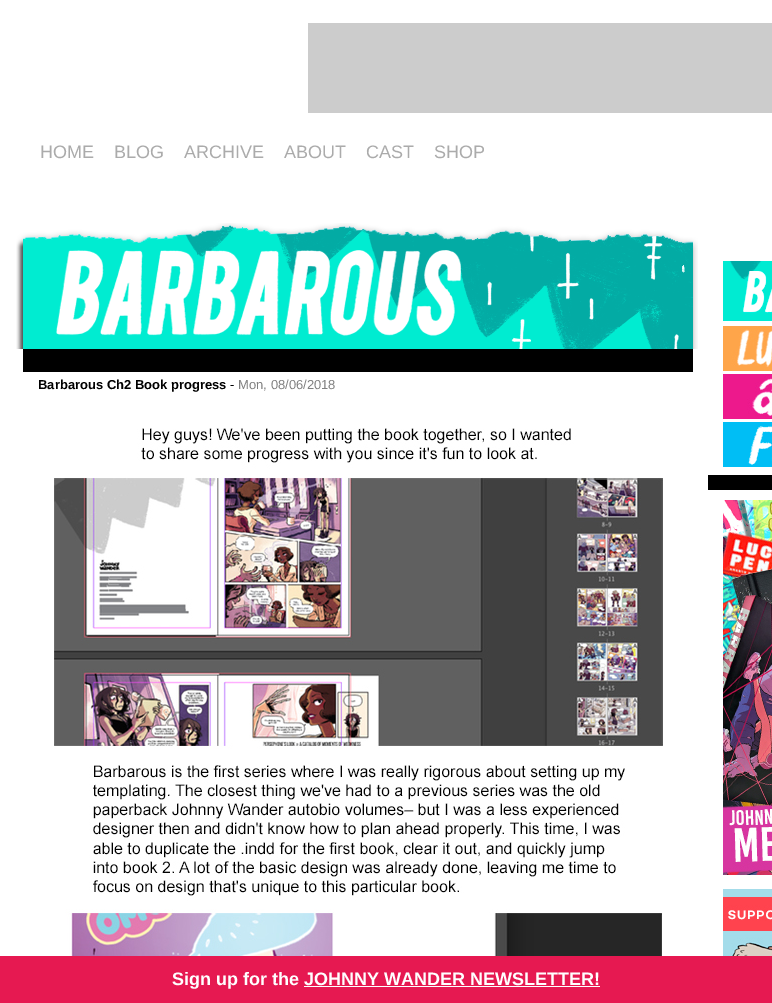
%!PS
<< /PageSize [772 1003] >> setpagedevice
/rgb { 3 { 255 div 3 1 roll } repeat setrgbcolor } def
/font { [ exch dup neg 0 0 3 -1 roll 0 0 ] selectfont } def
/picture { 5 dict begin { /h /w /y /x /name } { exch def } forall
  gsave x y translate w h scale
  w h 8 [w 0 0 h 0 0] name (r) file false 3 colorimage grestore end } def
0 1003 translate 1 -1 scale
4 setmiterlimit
255 255 255 rgb
0 0 772 1003 rectfill
204 204 204 rgb
308 23 464 90 rectfill
(img/1.rgb) 16 223 682 126 picture
0 0 0 rgb
23 349 670 23 rectfill
(img/2.rgb) 54 428 609 528 picture
(img/3.rgb) 723 261 49 60 picture
(img/4.rgb) 723 326 49 45 picture
(img/5.rgb) 723 374 49 45 picture
(img/6.rgb) 723 422 49 45 picture
708 475 64 15 rectfill
(img/7.rgb) 723 500 49 375 picture
(img/8.rgb) 723 889 49 67 picture
230 25 81 rgb
0 956 772 47 rectfill
255 255 255 rgb
304 986 296 1 rectfill
/LiberationSans-Regular 18 font
171 171 171 rgb
[
  [(HOME) 40 158]
  [(BLOG) 114 158]
  [(ARCHIVE) 184 158]
  [(ABOUT) 284 158]
  [(CAST) 366 158]
  [(SHOP) 434 158]
] { aload pop moveto show } forall
/LiberationSans-Bold 13 font
0 0 0 rgb
38 389 moveto (Barbarous Ch2 Book progress) show
/LiberationSans-Regular 13 font
230 389 moveto (-) show
128 128 128 rgb
238 389 moveto (Mon, 08/06/2018) show
/LiberationSans-Bold 18 font
255 255 255 rgb
172 985 moveto (Sign up for the JOHNNY WANDER NEWSLETTER!) show
showpage
